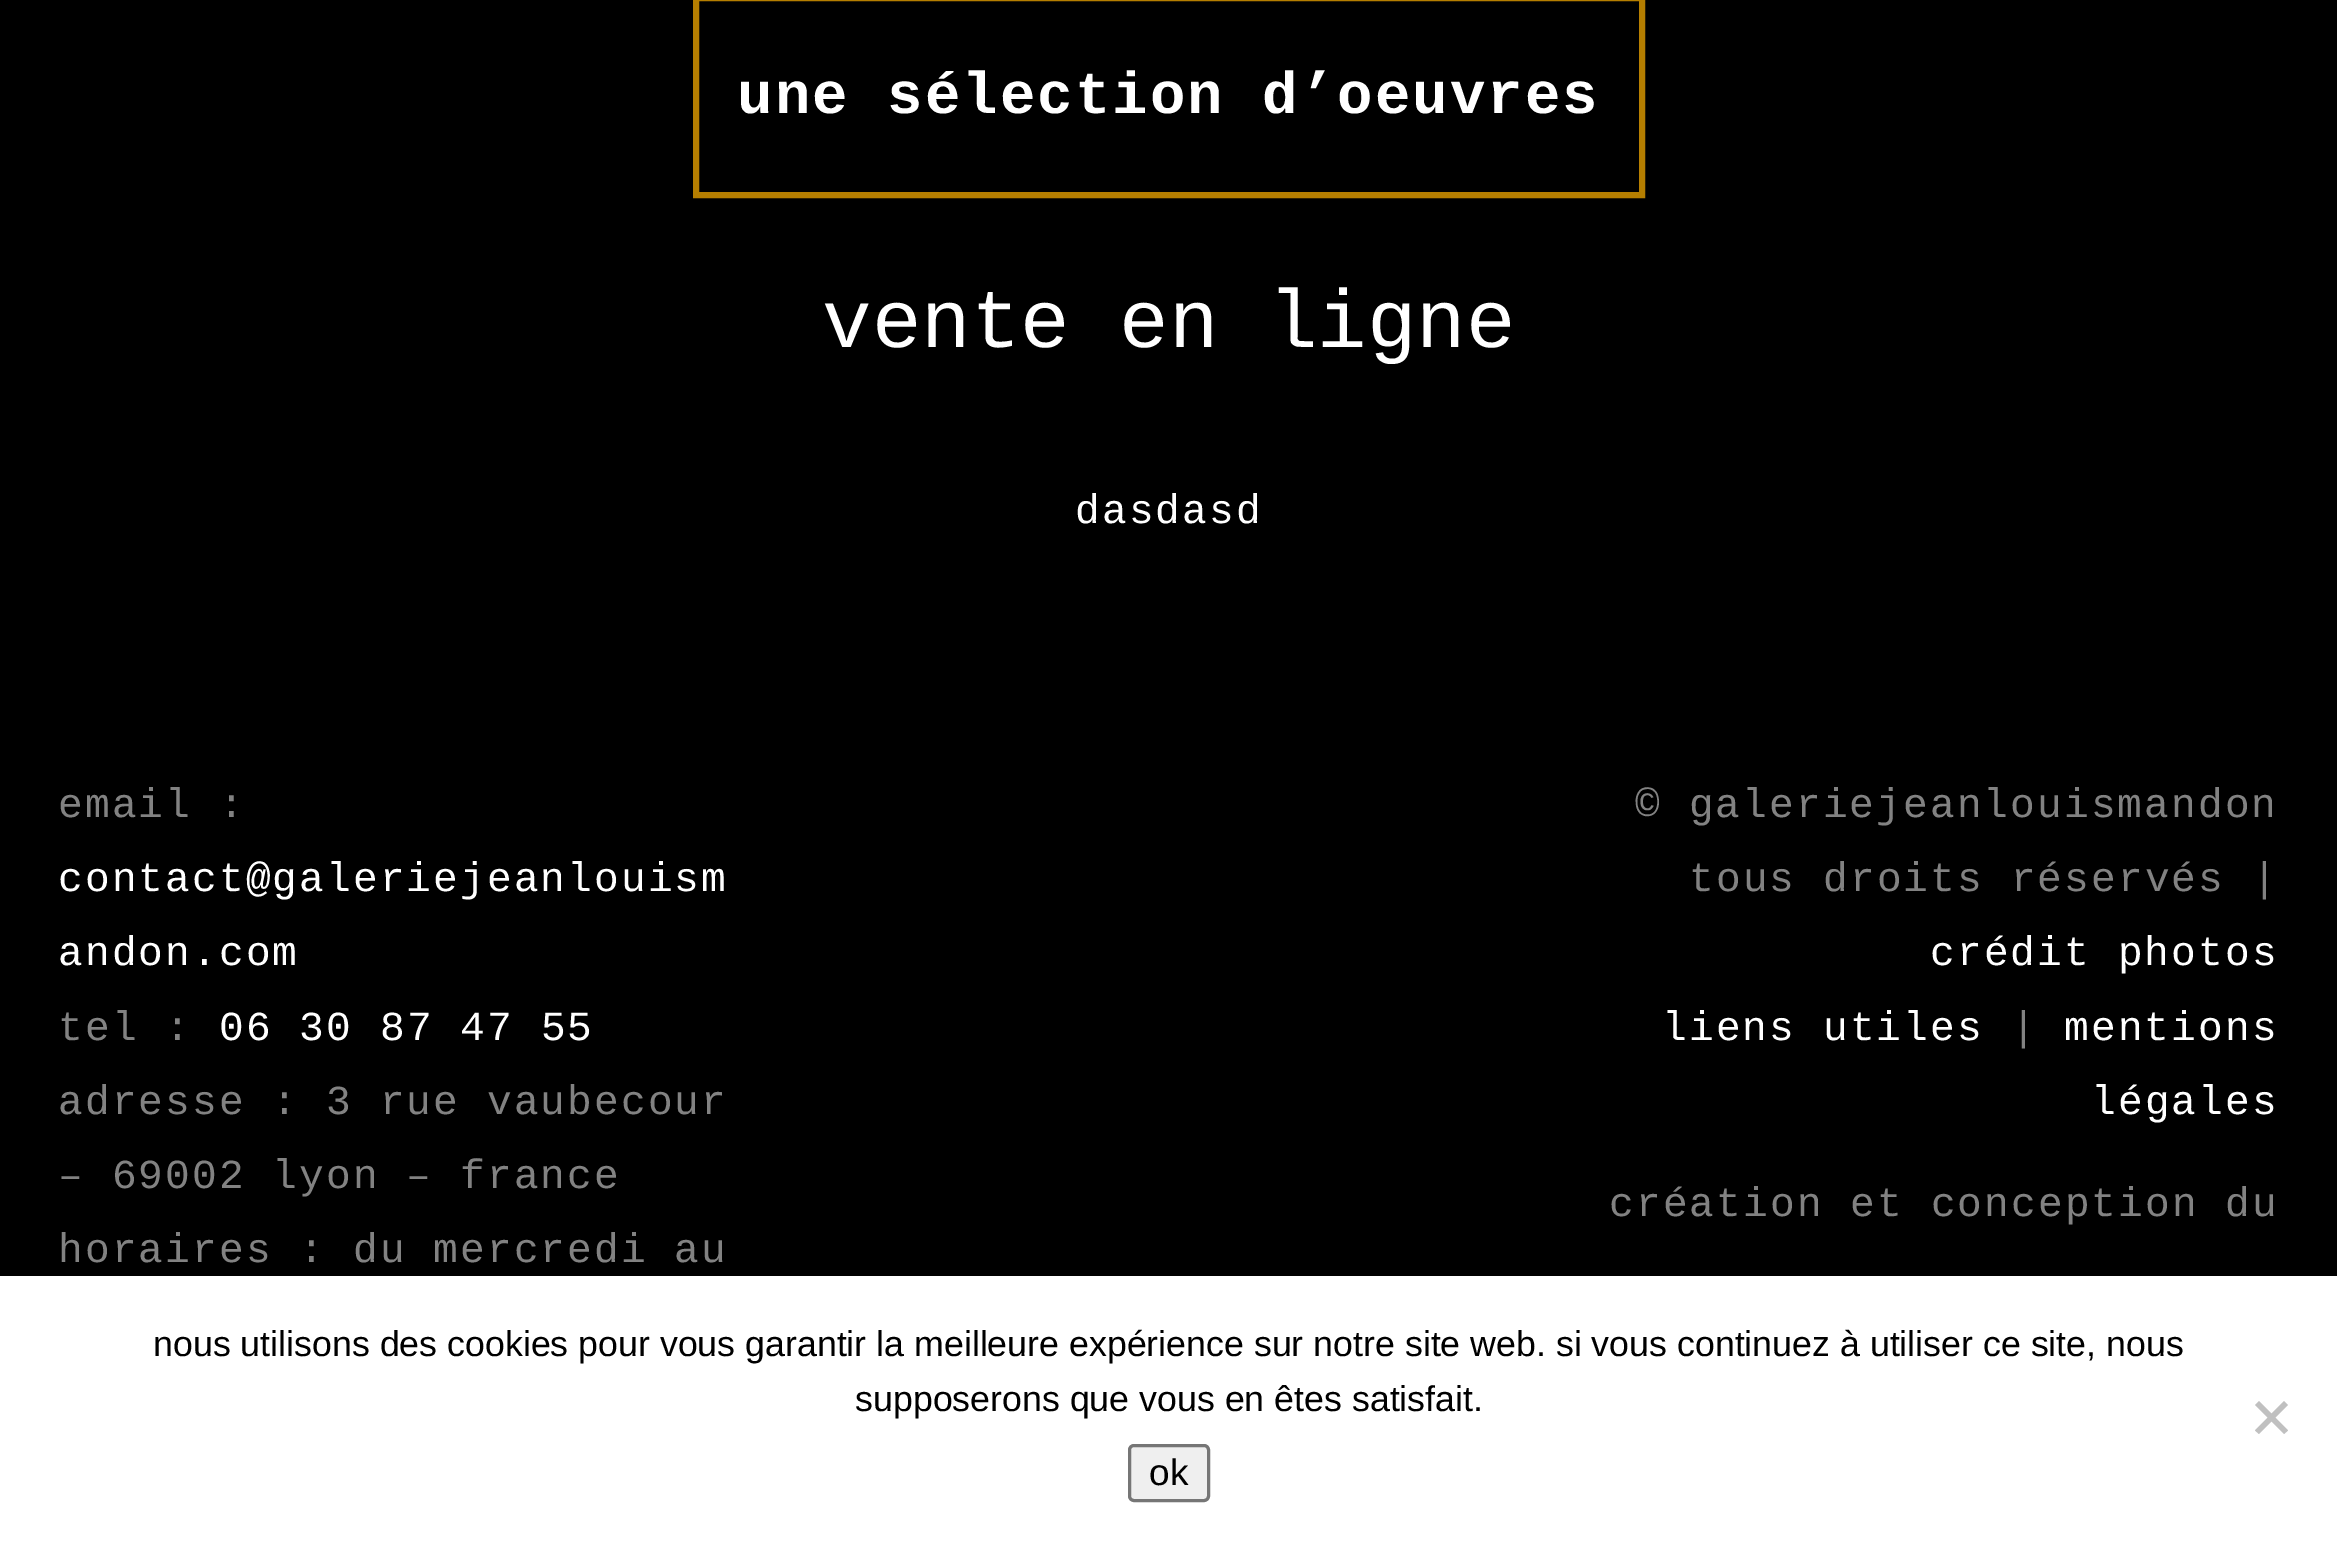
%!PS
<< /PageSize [2337 1554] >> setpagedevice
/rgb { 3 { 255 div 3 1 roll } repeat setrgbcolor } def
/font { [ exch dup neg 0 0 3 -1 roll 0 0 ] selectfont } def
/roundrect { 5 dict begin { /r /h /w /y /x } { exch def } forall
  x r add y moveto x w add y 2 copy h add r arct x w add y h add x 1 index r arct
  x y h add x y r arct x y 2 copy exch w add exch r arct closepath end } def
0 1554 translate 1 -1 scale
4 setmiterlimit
0 0 0 rgb
0 0 2337 1554 rectfill
181 126 0 rgb
6 setlinewidth
696 -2 946 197 rectstroke
255 255 255 rgb
0 1276 2337 278 rectfill
192 192 192 rgb
2284 1401 moveto 2288 1405 lineto 2259 1434 lineto 2255 1430.5 lineto closepath fill
2255 1405 moveto 2259 1401 lineto 2288 1430.5 lineto 2284 1434 lineto closepath fill
239 239 239 rgb
1129.5 1445.5 79 55 4.5 roundrect gsave fill grestore
118 118 118 rgb
3 setlinewidth
stroke
/LiberationMono-Bold 59.1 font
255 255 255 rgb
737 113 moveto 2.05 0 (une sélection d’oeuvres) ashow
/LiberationMono-Regular 82.5 font
822 347 moveto (vente en ligne) show
/LiberationMono-Regular 41.25 font
1075 523 moveto 2.05 0 (dasdasd) ashow
130 130 130 rgb
58 817 moveto 2.05 0 (email :) ashow
255 255 255 rgb
58 891 moveto 2.05 0 (contact@galeriejeanlouism) ashow
58 965 moveto 2.05 0 (andon.com) ashow
130 130 130 rgb
58 1040 moveto 2.05 0 (tel :) ashow
255 255 255 rgb
219 1040 moveto 2.05 0 (06 30 87 47 55) ashow
130 130 130 rgb
58 1114 moveto 2.05 0 (adresse : 3 rue vaubecour) ashow
58 1188 moveto 2.05 0 (– 69002 lyon – france) ashow
58 1262 moveto 2.05 0 (horaires : du mercredi au) ashow
1635 817 moveto 2.05 0 (© galeriejeanlouismandon) ashow
1689 891 moveto 2.05 0 (tous droits réservés |) ashow
255 255 255 rgb
1930 965 moveto 2.05 0 (crédit photos) ashow
1662 1040 moveto 2.05 0 (liens utiles) ashow
130 130 130 rgb
2011 1040 moveto 2.05 0 (|) ashow
255 255 255 rgb
2064 1040 moveto 2.05 0 (mentions) ashow
2091 1114 moveto 2.05 0 (légales) ashow
130 130 130 rgb
1609 1216 moveto 2.05 0 (création et conception du) ashow
/LiberationSans-Regular 35.75 font
0 0 0 rgb
153 1356 moveto (nous utilisons des cookies pour vous garantir la meilleure expérience sur notre site web. si vous continuez à utiliser ce site, nous) show
855 1411 moveto (supposerons que vous en êtes satisfait.) show
/LiberationSans-Regular 37 font
1149 1485 moveto (ok) show
showpage
